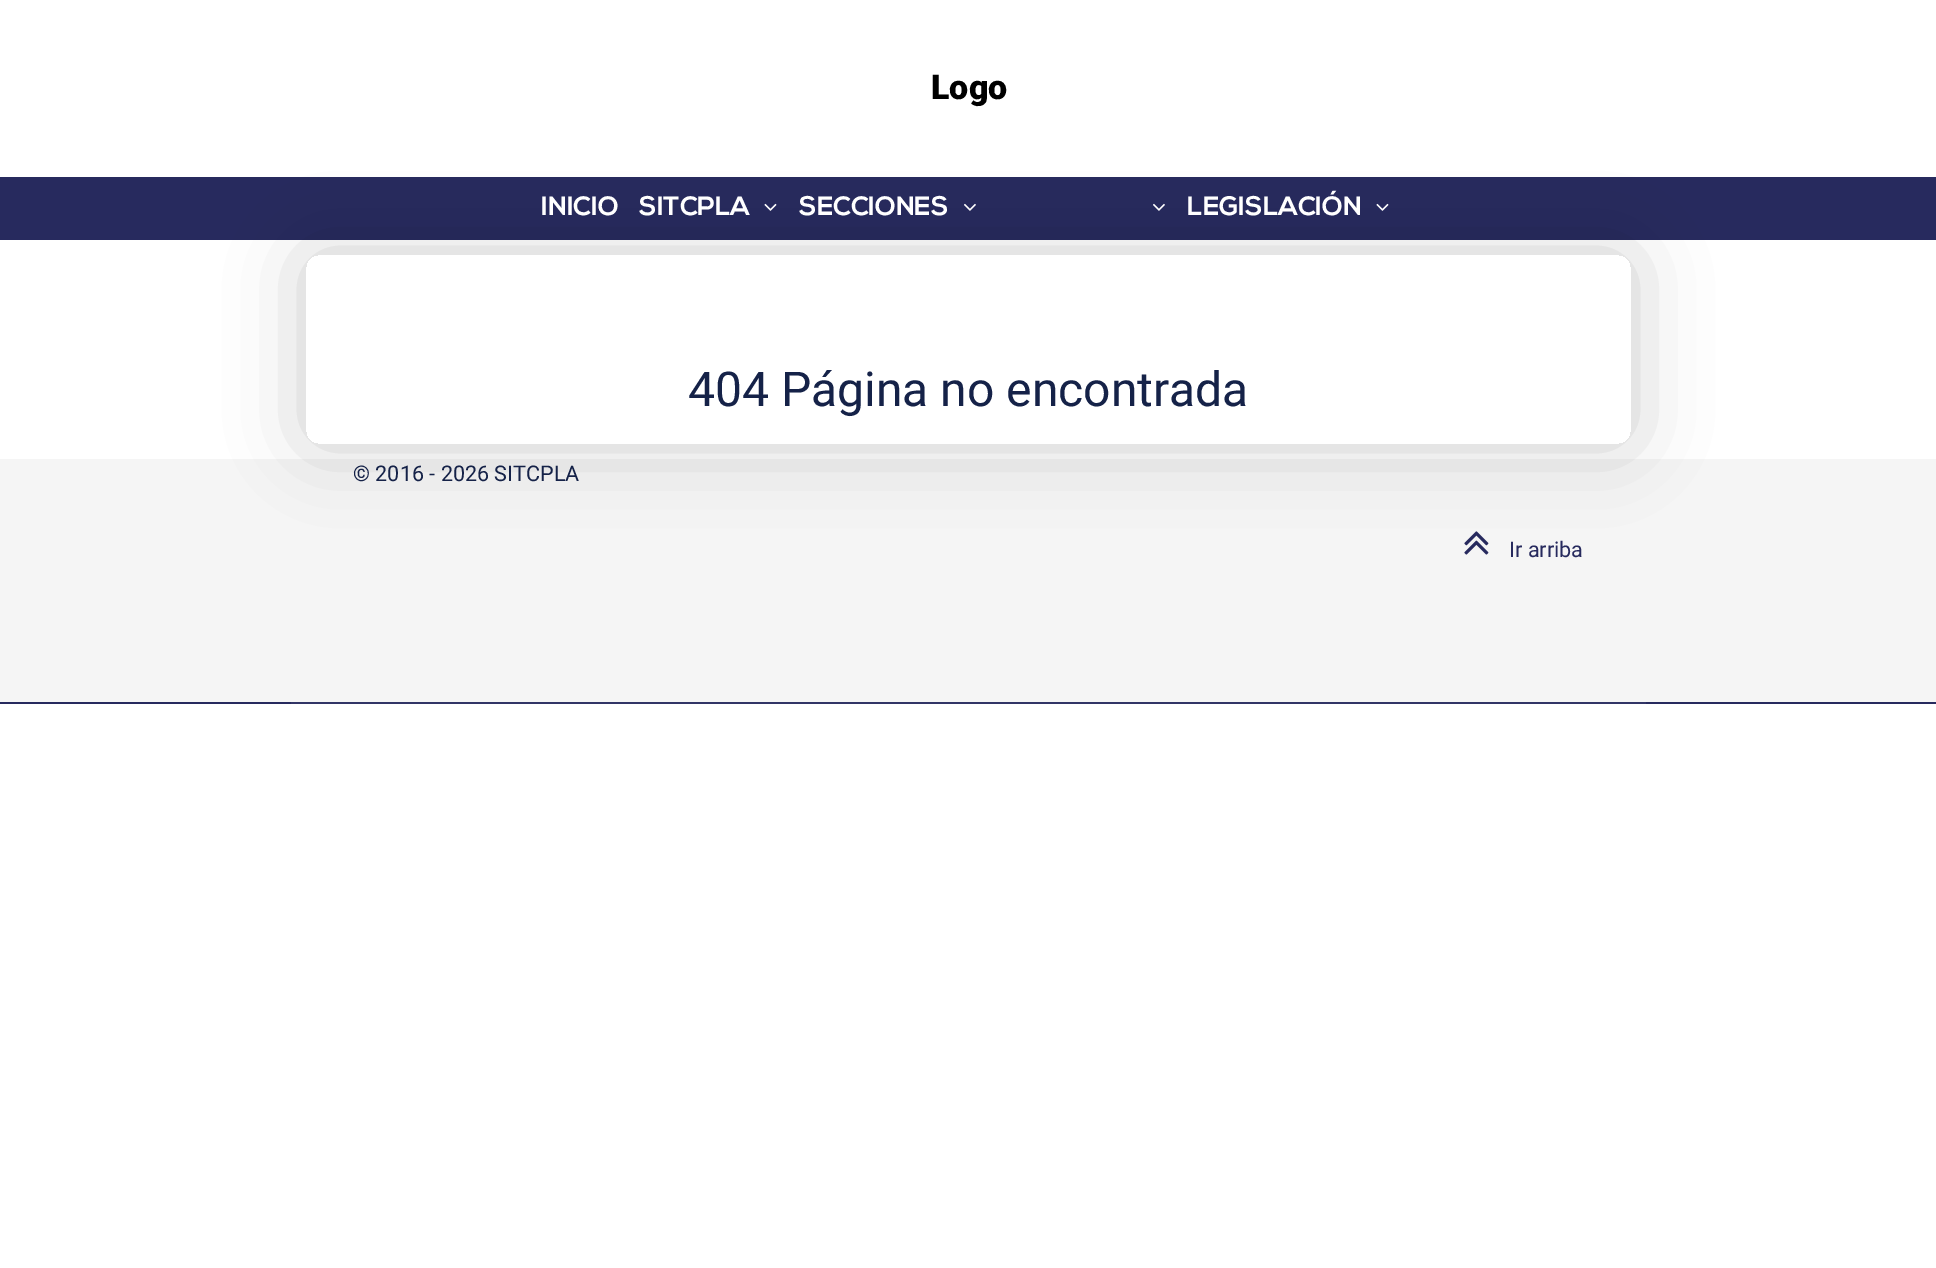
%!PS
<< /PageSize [1936 1268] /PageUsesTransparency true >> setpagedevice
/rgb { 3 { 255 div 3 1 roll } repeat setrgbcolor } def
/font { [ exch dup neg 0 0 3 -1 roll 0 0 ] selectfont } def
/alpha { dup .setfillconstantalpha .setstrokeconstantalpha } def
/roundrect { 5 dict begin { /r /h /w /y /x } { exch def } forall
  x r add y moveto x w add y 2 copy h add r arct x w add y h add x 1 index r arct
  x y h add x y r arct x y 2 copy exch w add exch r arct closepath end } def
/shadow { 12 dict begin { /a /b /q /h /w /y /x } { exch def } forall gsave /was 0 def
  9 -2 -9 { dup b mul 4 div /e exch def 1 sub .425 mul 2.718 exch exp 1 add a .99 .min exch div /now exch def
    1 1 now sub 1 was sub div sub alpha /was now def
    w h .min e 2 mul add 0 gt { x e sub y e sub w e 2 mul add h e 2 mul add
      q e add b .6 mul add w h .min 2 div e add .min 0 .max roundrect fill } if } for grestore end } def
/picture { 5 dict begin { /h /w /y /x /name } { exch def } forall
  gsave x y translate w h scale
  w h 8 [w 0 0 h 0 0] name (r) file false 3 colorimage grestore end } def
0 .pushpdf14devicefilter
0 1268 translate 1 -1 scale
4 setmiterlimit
255 255 255 rgb
0 0 1936 1268 rectfill
39 42 94 rgb
0 177 1936 63 rectfill
245 245 245 rgb
0 459 1936 243 rectfill
gsave
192 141 moveto 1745 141 lineto 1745 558 lineto 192 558 lineto closepath 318 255 moveto 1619 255 lineto 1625.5 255 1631 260.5 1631 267 curveto 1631 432 lineto 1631 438.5 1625.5 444 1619 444 curveto 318 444 lineto 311.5 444 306 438.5 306 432 curveto 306 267 lineto 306 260.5 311.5 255 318 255 curveto closepath eoclip newpath
0 0 0 rgb
306 255 1325 189 12 37.5 0.2 shadow
grestore
(img/1.rgb) 764 203 13 8 picture
(img/2.rgb) 964 203 12 8 picture
(img/2.rgb) 1153 203 12 8 picture
(img/1.rgb) 1376 203 13 8 picture
(img/3.rgb) 1464 531 25 24 picture
39 42 94 rgb
0 702 1936 2 rectfill
50 53 102 rgb
291 702 1355 2 rectfill
/Roboto-Black 34 font
0 0 0 rgb
931 99 moveto (Logo) show
/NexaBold-Bold 26.5 font
255 255 255 rgb
[
  [(INICIO) 541 215]
  [(SITCPLA) 639 215]
  [(SECCIONES) 799 215]
  [(LEGISLACIÓN) 1187 215]
] { aload pop moveto show } forall
/Roboto-Regular 48 font
21 34 72 rgb
688 406 moveto (404 Página no encontrada) show
/Roboto-Regular 21.6 font
353 481 moveto (© 2016 - 2026 SITCPLA) show
39 42 94 rgb
1509 557 moveto (Ir arriba) show
.poppdf14devicefilter showpage
